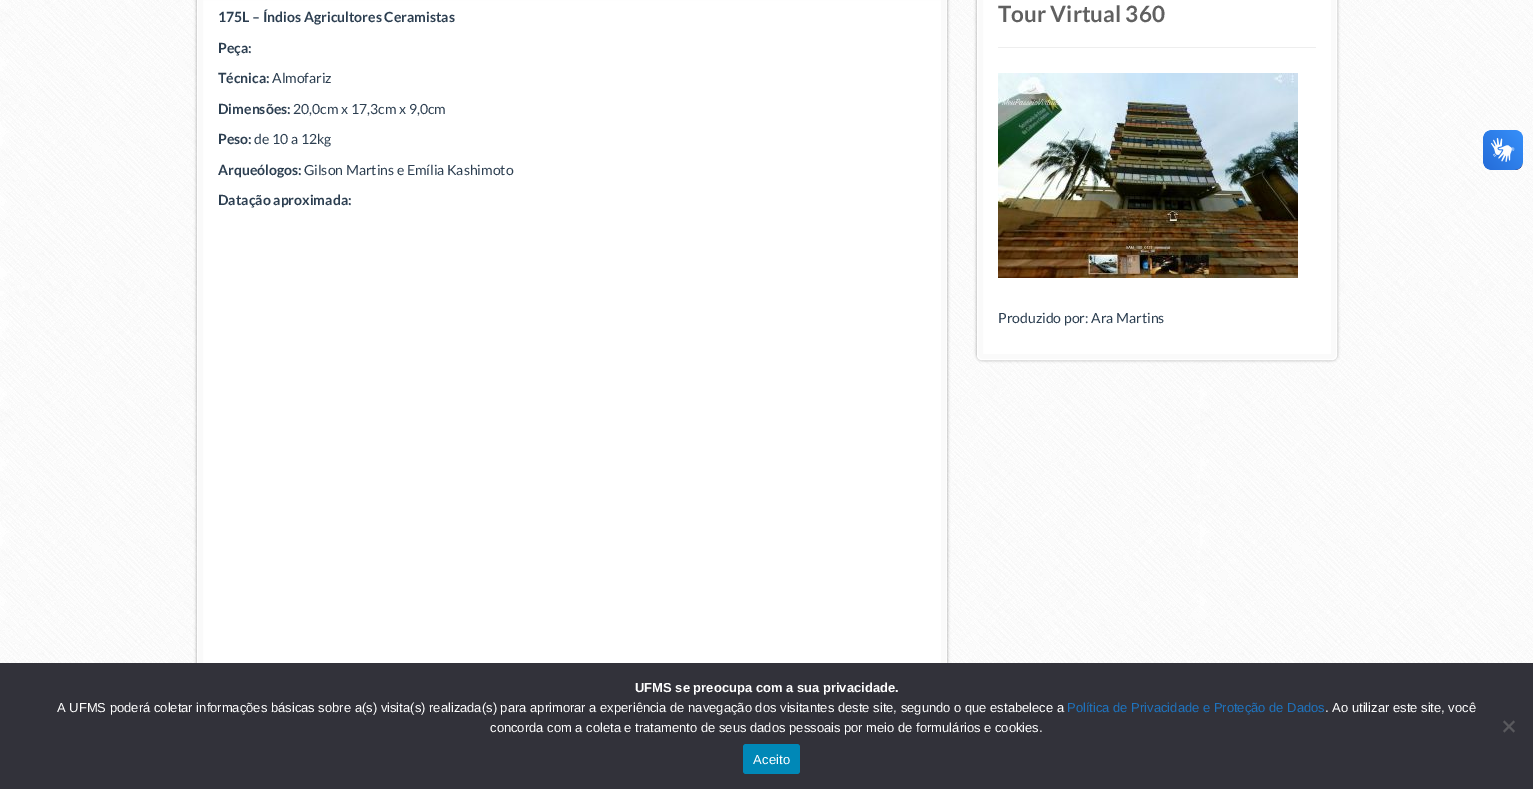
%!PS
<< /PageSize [1533 789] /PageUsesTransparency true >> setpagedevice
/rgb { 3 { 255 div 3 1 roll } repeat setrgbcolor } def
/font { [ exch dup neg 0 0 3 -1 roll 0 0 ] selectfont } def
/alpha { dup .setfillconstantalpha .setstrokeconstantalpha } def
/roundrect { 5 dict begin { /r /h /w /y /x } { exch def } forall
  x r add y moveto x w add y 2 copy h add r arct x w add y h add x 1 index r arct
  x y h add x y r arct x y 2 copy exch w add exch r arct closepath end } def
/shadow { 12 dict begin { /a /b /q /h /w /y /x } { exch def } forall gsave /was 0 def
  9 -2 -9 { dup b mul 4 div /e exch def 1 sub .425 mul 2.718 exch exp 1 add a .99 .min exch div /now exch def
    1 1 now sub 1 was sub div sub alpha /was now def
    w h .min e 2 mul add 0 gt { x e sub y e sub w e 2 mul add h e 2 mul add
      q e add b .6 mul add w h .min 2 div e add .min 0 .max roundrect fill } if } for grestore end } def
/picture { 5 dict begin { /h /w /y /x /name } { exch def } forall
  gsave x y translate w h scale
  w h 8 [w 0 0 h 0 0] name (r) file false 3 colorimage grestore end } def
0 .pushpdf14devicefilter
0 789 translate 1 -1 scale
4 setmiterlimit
255 255 255 rgb
0 0 1533 789 rectfill
(img/1.rgb) 0 0 1533 663 picture
0 0 0 rgb
197 -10 750 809 5 1.5 0.35 shadow
255 255 255 rgb
197 0 750 663 rectfill
250 250 250 rgb
5 setlinewidth
200.5 -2.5 743 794 rectstroke
0 0 0 rgb
977 -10 360 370 5 1.5 0.35 shadow
255 255 255 rgb
977 -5 360 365 5 roundrect fill
250 250 250 rgb
980.5 -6.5 353 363 1.5 roundrect stroke
255 255 255 rgb
1 setlinewidth
977.5 -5.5 359 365 4.5 roundrect stroke
238 238 238 rgb
998 47 318 1 rectfill
(img/2.rgb) 998 73 300 205 picture
(img/3.rgb) 1483 130 40 40 picture
(img/4.rgb) 1483 130 40 40 picture
50 50 58 rgb
0 663 1533 126 rectfill
89 89 93 rgb
1513.5 720.5 moveto 1515 722 lineto 1504.5 732.5 lineto 1503 731 lineto closepath fill
1503 722 moveto 1504.5 720.5 lineto 1515 731 lineto 1513.5 732.5 lineto closepath fill
0 136 183 rgb
743 744 57 30 3 roundrect fill
/Lato-Bold 14 font
44 62 80 rgb
[
  [(175L – Índios Agricultores Ceramistas) 218 22]
  [(Peça:) 218 53]
  [(Técnica:) 218 83]
] { aload pop moveto show } forall
/Lato-Regular 14 font
272 83 moveto (Almofariz) show
/Lato-Bold 14 font
218 114 moveto (Dimensões:) show
/Lato-Regular 14 font
293 114 moveto (20,0cm x 17,3cm x 9,0cm) show
/Lato-Bold 14 font
218 144 moveto (Peso:) show
/Lato-Regular 14 font
254 144 moveto (de 10 a 12kg) show
/Lato-Bold 14 font
218 175 moveto (Arqueólogos:) show
/Lato-Regular 14 font
304 175 moveto (Gilson Martins e Emília Kashimoto) show
/Lato-Bold 14 font
218 205 moveto (Datação aproximada:) show
/Lato-Bold 22.5 font
96 96 96 rgb
998 22 moveto (Tour Virtual 360) show
/Lato-Regular 14 font
44 62 80 rgb
998 323 moveto (Produzido por: Ara Martins) show
/LiberationSans-Bold 13 font
255 255 255 rgb
635 692 moveto (UFMS se preocupa com a sua privacidade.) show
/LiberationSans-Regular 13 font
57 712 moveto (A UFMS poderá coletar informações básicas sobre a\(s\) visita\(s\) realizada\(s\) para aprimorar a experiência de navegação dos visitantes deste site, segundo o que estabelece a) show
30 115 190 rgb
1067 712 moveto (Política de Privacidade e Proteção de Dados) show
255 255 255 rgb
1325 712 moveto (. Ao utilizar este site, você) show
490 732 moveto (concorda com a coleta e tratamento de seus dados pessoais por meio de formulários e cookies.) show
753 764 moveto 0.25 0 (Aceito) ashow
.poppdf14devicefilter showpage
